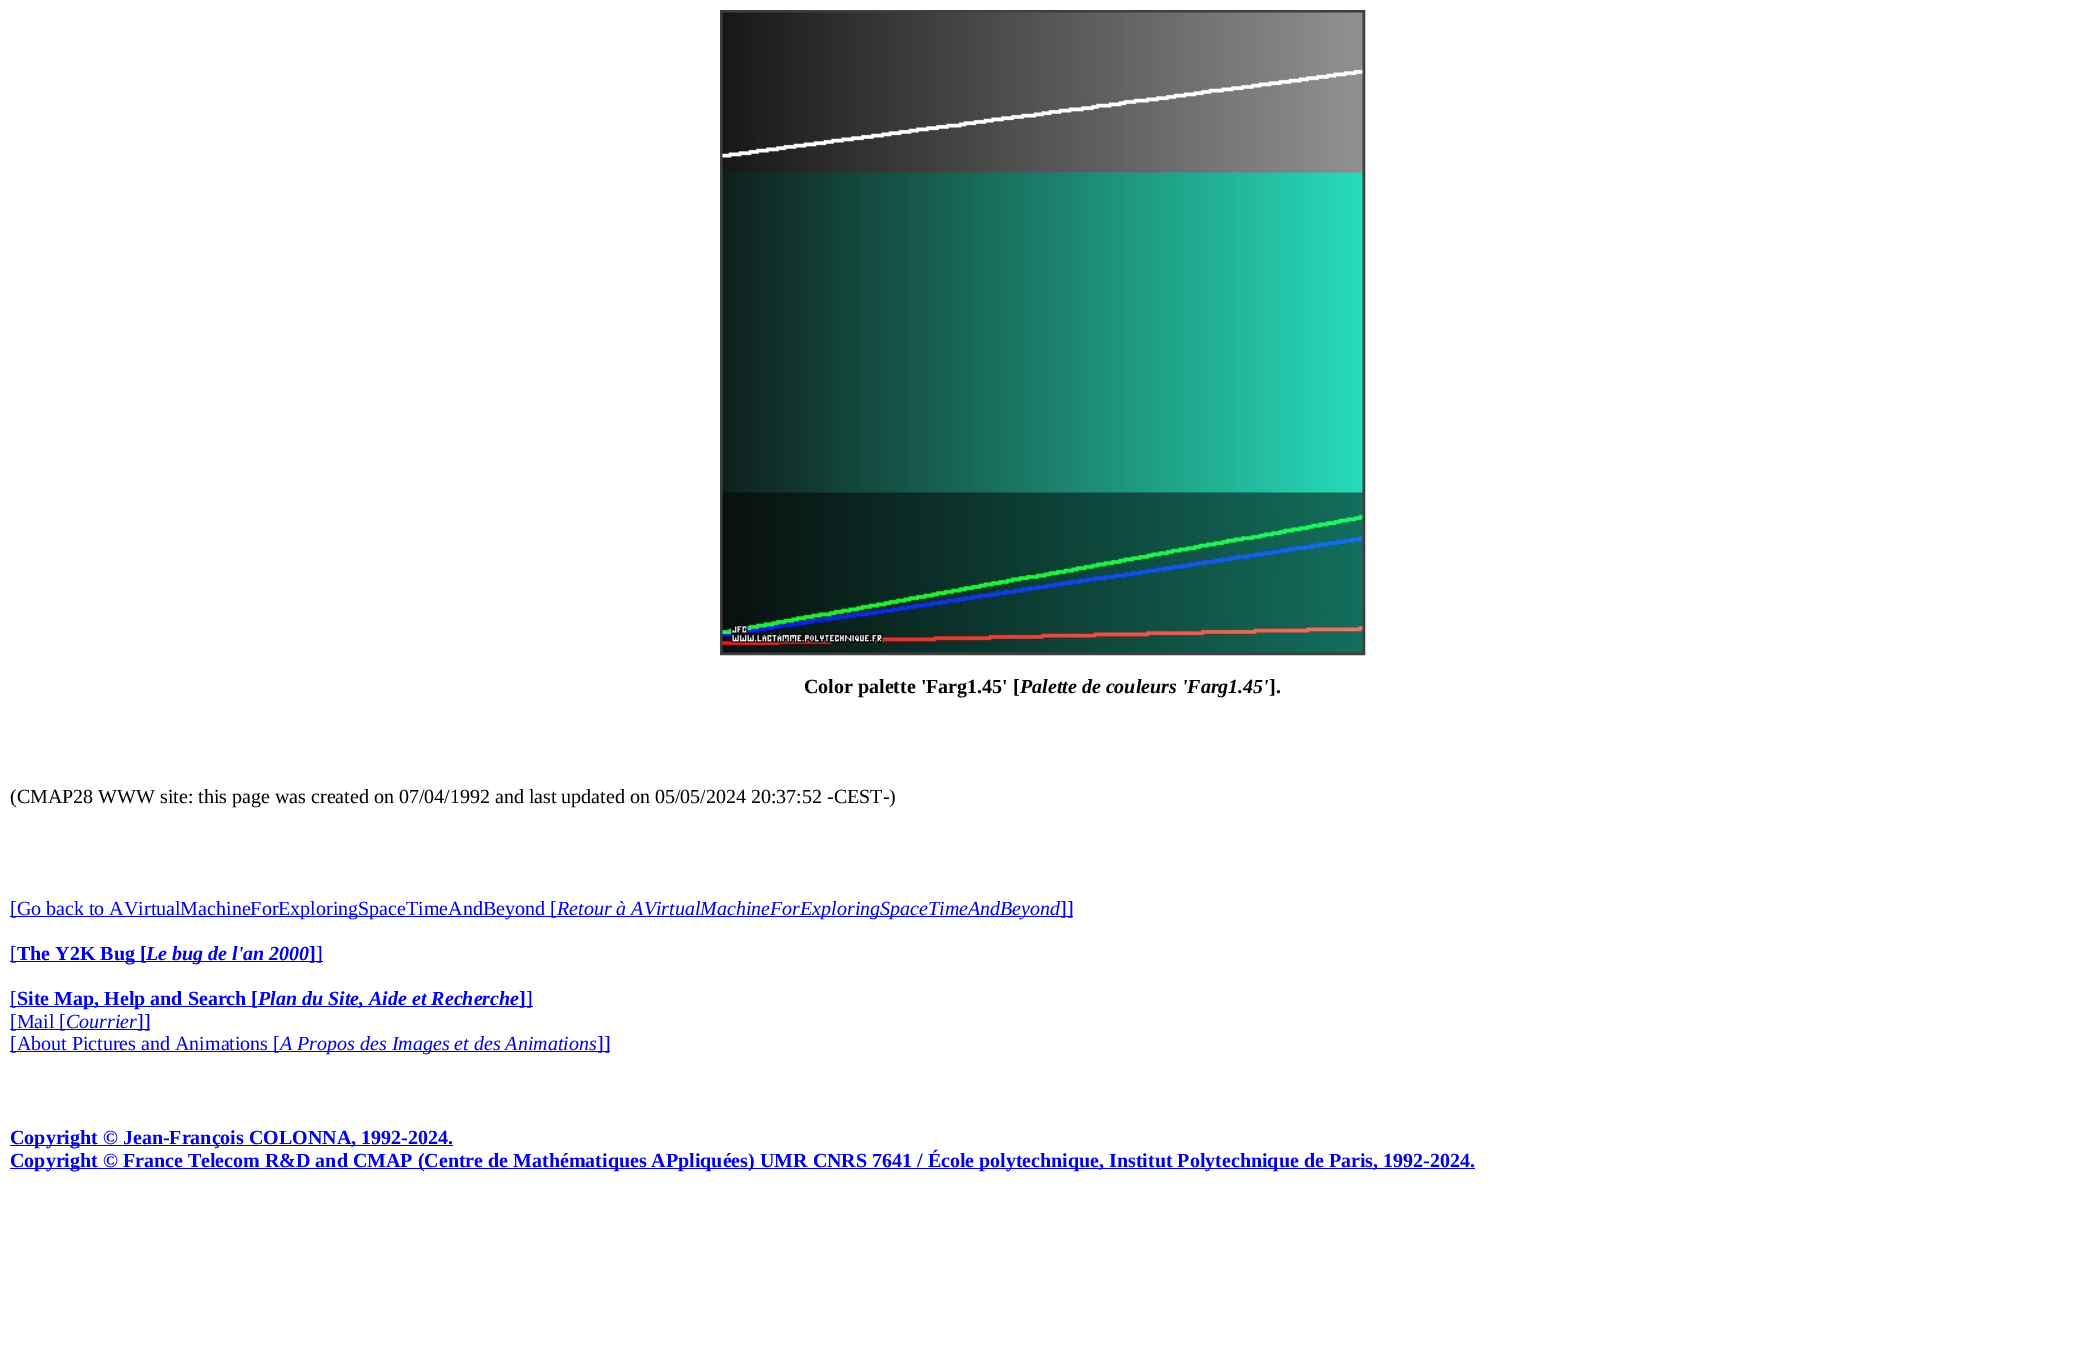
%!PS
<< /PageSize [2084 1365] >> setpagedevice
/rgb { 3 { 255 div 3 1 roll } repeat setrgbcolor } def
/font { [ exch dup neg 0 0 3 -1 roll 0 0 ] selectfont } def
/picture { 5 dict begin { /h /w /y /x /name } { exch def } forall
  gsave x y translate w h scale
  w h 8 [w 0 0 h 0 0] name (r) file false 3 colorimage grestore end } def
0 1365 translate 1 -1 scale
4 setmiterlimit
255 255 255 rgb
0 0 2084 1365 rectfill
63 63 63 rgb
3 setlinewidth
721.5 11.5 642 642 rectstroke
(img/1.rgb) 722 12 641 641 picture
[
  [10 916 1063 1 0 0 238]
  [10 961 313 1 0 0 238]
  [10 1006 523 1 0 0 238]
  [10 1029 140 1 0 0 238]
  [10 1051 600 1 0 0 238]
  [10 1145 443 1 0 0 238]
  [10 1168 1465 1 0 0 238]
] { aload pop rgb rectfill } forall
/LiberationSerif-Bold 20 font
0 0 0 rgb
804 693 moveto (Color palette 'Farg1.45' [) show
/LiberationSerif-BoldItalic 20 font
1020 693 moveto (Palette de couleurs 'Farg1.45') show
/LiberationSerif-Bold 20 font
1269 693 moveto (].) show
/LiberationSerif-Regular 20 font
10 803 moveto (\(CMAP28 WWW site: this page was created on 07/04/1992 and last updated on 05/05/2024 20:37:52 -CEST-\)) show
0 0 238 rgb
10 915 moveto ([Go back to AVirtualMachineForExploringSpaceTimeAndBeyond [) show
/LiberationSerif-Italic 20 font
557 915 moveto (Retour à AVirtualMachineForExploringSpaceTimeAndBeyond) show
/LiberationSerif-Regular 20 font
1060 915 moveto (]]) show
10 960 moveto ([) show
/LiberationSerif-Bold 20 font
17 960 moveto (The Y2K Bug [) show
/LiberationSerif-BoldItalic 20 font
146 960 moveto (Le bug de l'an 2000) show
/LiberationSerif-Bold 20 font
309 960 moveto (]) show
/LiberationSerif-Regular 20 font
316 960 moveto (]) show
10 1005 moveto ([) show
/LiberationSerif-Bold 20 font
17 1005 moveto (Site Map, Help and Search [) show
/LiberationSerif-BoldItalic 20 font
258 1005 moveto (Plan du Site, Aide et Recherche) show
/LiberationSerif-Bold 20 font
519 1005 moveto (]) show
/LiberationSerif-Regular 20 font
526 1005 moveto (]) show
10 1028 moveto ([Mail [) show
/LiberationSerif-Italic 20 font
66 1028 moveto (Courrier) show
/LiberationSerif-Regular 20 font
137 1028 moveto (]]) show
10 1050 moveto ([About Pictures and Animations [) show
/LiberationSerif-Italic 20 font
280 1050 moveto (A Propos des Images et des Animations) show
/LiberationSerif-Regular 20 font
597 1050 moveto (]]) show
/LiberationSerif-Bold 20 font
10 1144 moveto (Copyright © Jean-François COLONNA, 1992-2024.) show
10 1167 moveto (Copyright © France Telecom R&D and CMAP \(Centre de Mathématiques APpliquées\) UMR CNRS 7641 / École polytechnique, Institut Polytechnique de Paris, 1992-2024.) show
showpage
